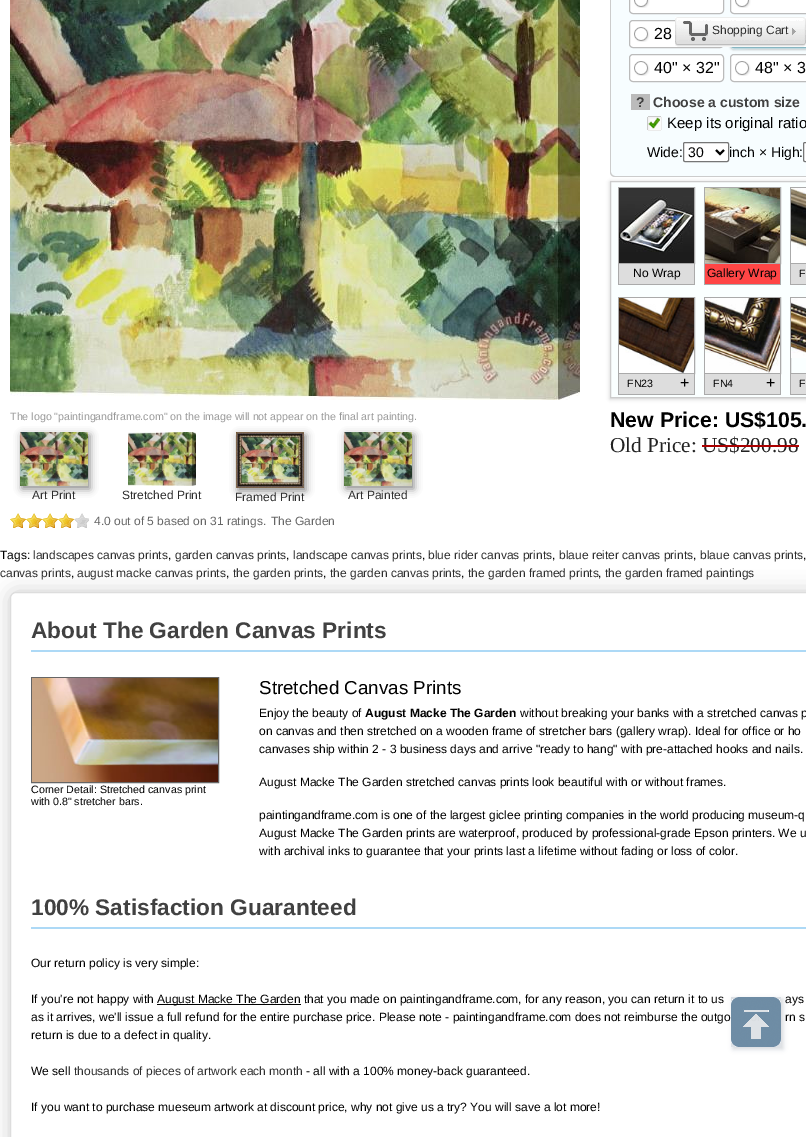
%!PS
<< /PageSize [806 1137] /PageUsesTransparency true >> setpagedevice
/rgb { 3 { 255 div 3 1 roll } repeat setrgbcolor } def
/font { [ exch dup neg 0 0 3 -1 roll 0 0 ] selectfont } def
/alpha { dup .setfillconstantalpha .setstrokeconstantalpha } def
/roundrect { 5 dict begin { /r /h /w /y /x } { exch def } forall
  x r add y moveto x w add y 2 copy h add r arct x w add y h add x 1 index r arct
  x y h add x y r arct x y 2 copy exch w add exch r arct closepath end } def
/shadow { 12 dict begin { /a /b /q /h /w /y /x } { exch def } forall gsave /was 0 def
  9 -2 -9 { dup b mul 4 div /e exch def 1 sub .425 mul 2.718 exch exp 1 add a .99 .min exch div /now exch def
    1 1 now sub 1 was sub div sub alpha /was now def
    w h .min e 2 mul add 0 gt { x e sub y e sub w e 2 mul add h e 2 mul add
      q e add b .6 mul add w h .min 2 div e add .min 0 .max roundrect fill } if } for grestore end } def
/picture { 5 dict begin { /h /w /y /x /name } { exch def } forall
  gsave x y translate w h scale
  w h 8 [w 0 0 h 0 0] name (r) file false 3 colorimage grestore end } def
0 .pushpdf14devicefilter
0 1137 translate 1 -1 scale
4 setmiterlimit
255 255 255 rgb
0 0 806 1137 rectfill
247 253 255 rgb
610 -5 moveto 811 -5 lineto 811 172 lineto 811 175 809 177 806 177 curveto 615 177 lineto 612 177 610 175 610 172 curveto closepath fill
204 204 204 rgb
610 -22 moveto 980 -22 lineto 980 172 lineto 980 175 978 177 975 177 curveto 615 177 lineto 612 177 610 175 610 172 curveto closepath 611 -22 moveto 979 -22 lineto 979 172 lineto 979 174 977 176 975 176 curveto 615 176 lineto 613 176 611 174 611 172 curveto closepath eofill
255 255 255 rgb
629.5 20.5 94 27 3.5 roundrect gsave fill grestore
187 187 187 rgb
stroke
0 0 0 rgb
730 22 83 28 4 1 0.2 shadow
209 227 231 rgb
730 44 moveto 730 53 744 49 748 49 curveto 806 49 lineto 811 49 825 53 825 44 curveto 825 46 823 48 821 48 curveto 734 48 lineto 732 48 730 46 730 44 curveto closepath fill
135 182 194 rgb
730.5 20.5 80 27 3.5 roundrect stroke
(img/1.rgb) 675 17 131 30 picture
(img/2.rgb) 792 28 4 7 picture
255 255 255 rgb
629.5 -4.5 94 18 3.5 roundrect gsave fill grestore
187 187 187 rgb
stroke
(img/3.rgb) 634 0 16 8 picture
255 255 255 rgb
730.5 -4.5 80 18 3.5 roundrect gsave fill grestore
187 187 187 rgb
stroke
(img/3.rgb) 735 0 16 8 picture
(img/4.rgb) 634 27 16 15 picture
255 255 255 rgb
629.5 54.5 94 27 3.5 roundrect gsave fill grestore
187 187 187 rgb
stroke
(img/4.rgb) 634 61 16 15 picture
255 255 255 rgb
730.5 54.5 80 27 3.5 roundrect gsave fill grestore
187 187 187 rgb
stroke
(img/4.rgb) 735 61 16 15 picture
631 94 19 16 rectfill
(img/5.rgb) 647 116 15 15 picture
255 255 255 rgb
683.5 142.5 45 19 1.5 roundrect gsave fill grestore
118 118 118 rgb
stroke
0 0 0 rgb
2 setlinewidth
716 150 moveto 720 154 lineto 724 150 lineto stroke
255 255 255 rgb
803.5 142.5 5 19 1.5 roundrect gsave fill grestore
118 118 118 rgb
1 setlinewidth
stroke
204 204 204 rgb
610 182 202 217 0 2 1 shadow
250 255 255 rgb
610.5 181.5 moveto 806.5 181.5 lineto 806.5 397.5 lineto 610.5 397.5 lineto closepath gsave fill grestore
204 204 204 rgb
stroke
170 170 170 rgb
618.5 187.5 76 76 rectstroke
(img/6.rgb) 619 188 75 75 picture
[
  [619 264 75 20 221 221 221]
  [694 264 1 21 170 170 170]
  [618 284 77 1 170 170 170]
  [618 264 1 21 170 170 170]
] { aload pop rgb rectfill } forall
704.5 187.5 76 76 rectstroke
(img/7.rgb) 705 188 75 75 picture
[
  [705 264 75 20 255 69 69]
  [780 264 1 21 170 170 170]
  [704 284 77 1 170 170 170]
  [704 264 1 21 170 170 170]
] { aload pop rgb rectfill } forall
790.5 187.5 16 76 rectstroke
(img/8.rgb) 791 188 15 75 picture
[
  [791 264 15 20 221 221 221]
  [790 284 16 1 170 170 170]
  [790 264 1 21 170 170 170]
] { aload pop rgb rectfill } forall
618.5 297.5 76 76 rectstroke
(img/9.rgb) 619 298 75 75 picture
[
  [619 374 75 20 221 221 221]
  [694 374 1 21 170 170 170]
  [618 394 77 1 170 170 170]
  [618 374 1 21 170 170 170]
] { aload pop rgb rectfill } forall
704.5 297.5 76 76 rectstroke
(img/10.rgb) 705 298 75 75 picture
[
  [705 374 75 20 221 221 221]
  [780 374 1 21 170 170 170]
  [704 394 77 1 170 170 170]
  [704 374 1 21 170 170 170]
] { aload pop rgb rectfill } forall
790.5 297.5 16 76 rectstroke
(img/11.rgb) 791 298 15 60 picture
[
  [791 374 15 20 221 221 221]
  [790 394 16 1 170 170 170]
  [790 374 1 21 170 170 170]
] { aload pop rgb rectfill } forall
(img/12.rgb) 10 0 570 400 picture
136 136 136 rgb
22 435 68 54 0 4 1 shadow
(img/13.rgb) 20 432 68 54 picture
(img/14.rgb) 128 432 68 54 picture
238 435 68 56 0 4 1 shadow
(img/15.rgb) 236 432 68 56 picture
346 435 68 54 0 4 1 shadow
(img/13.rgb) 344 432 68 54 picture
(img/16.rgb) 74 513 15 15 picture
(img/17.rgb) 10 513 64 15 picture
gsave
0 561 moveto 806 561 lineto 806 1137 lineto 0 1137 lineto closepath 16 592 moveto 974 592 lineto 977.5 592 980 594.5 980 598 curveto 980 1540 lineto 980 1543.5 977.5 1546 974 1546 curveto 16 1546 lineto 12.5 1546 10 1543.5 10 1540 curveto 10 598 lineto 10 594.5 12.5 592 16 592 curveto closepath eoclip newpath
204 204 204 rgb
10 592 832 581 6 10 1 shadow
grestore
221 221 221 rgb
10.5 592.5 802 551 5.5 roundrect stroke
173 217 246 rgb
31 650 775 2 rectfill
102 102 102 rgb
31.5 677.5 187 105 rectstroke
(img/18.rgb) 32 678 186 104 picture
173 217 246 rgb
31 927 775 2 rectfill
0 0 0 rgb
157 1004 144 1 rectfill
gsave
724 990 moveto 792 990 lineto 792 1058 lineto 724 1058 lineto closepath 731 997 moveto 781 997 lineto 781 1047 lineto 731 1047 lineto closepath eoclip newpath
211 214 218 rgb
733 999 50 50 0 2.5 0.98 shadow
grestore
0.98 alpha
221 225 229 rgb
731 997 50 50 rectfill
1 alpha
(img/19.rgb) 731 997 50 50 picture
/LiberationSans-Regular 12 font
45 45 45 rgb
712 34 moveto (Shopping Cart) show
/LiberationSans-Regular 16 font
0 0 0 rgb
[
  [(28) 654 39]
  [(40" × 32") 654 73]
  [(48" × 3) 755 73]
] { aload pop moveto show } forall
/LiberationSans-Bold 14 font
65 65 65 rgb
636 107 moveto (?) show
653 107 moveto (Choose a custom size) show
/LiberationSans-Regular 15 font
0 0 0 rgb
667 128 moveto (Keep its original ratio) show
/LiberationSans-Regular 14 font
[
  [(Wide:) 647 157]
  [(30) 688 157]
  [(inch × High:) 729 157]
] { aload pop moveto show } forall
/LiberationSans-Regular 12 font
633 277 moveto (No Wrap) show
707 277 moveto (Gallery Wrap) show
/LiberationSans-Regular 10.65 font
799 277 moveto (F) show
627 387 moveto (FN23) show
/LiberationSans-Regular 16 font
680 388 moveto (+) show
/LiberationSans-Regular 10.65 font
713 387 moveto (FN4) show
/LiberationSans-Regular 16 font
766 388 moveto (+) show
/LiberationSans-Regular 10.65 font
799 387 moveto (F) show
/LiberationSans-Bold 21.25 font
610 427 moveto (New Price: US$105.) show
/LiberationSerif-Regular 21.25 font
34 34 34 rgb
610 452 moveto (Old Price: US$200.98) show
170 0 0 rgb
702 445 97 2 rectfill
/LiberationSans-Regular 10.65 font
153 153 153 rgb
10 420 moveto (The logo "paintingandframe.com" on the image will not appear on the final art painting.) show
/LiberationSans-Regular 12 font
45 45 45 rgb
[
  [(Art Print) 32 499]
  [(Stretched Print) 122 499]
  [(Framed Print) 235 501]
  [(Art Painted) 348 499]
] { aload pop moveto show } forall
102 102 102 rgb
94 525 moveto (4.0 out of 5 based on 31 ratings.) show
271 525 moveto (The Garden) show
0 0 0 rgb
0 559 moveto (Tags:) show
45 45 45 rgb
33 559 moveto (landscapes canvas prints) show
0 0 0 rgb
168 559 moveto (,) show
45 45 45 rgb
175 559 moveto (garden canvas prints) show
0 0 0 rgb
286 559 moveto (,) show
45 45 45 rgb
293 559 moveto (landscape canvas prints) show
0 0 0 rgb
422 559 moveto (,) show
45 45 45 rgb
428 559 moveto (blue rider canvas prints) show
0 0 0 rgb
552 559 moveto (,) show
45 45 45 rgb
559 559 moveto (blaue reiter canvas prints) show
0 0 0 rgb
693 559 moveto (,) show
45 45 45 rgb
700 559 moveto (blaue canvas prints) show
0 0 0 rgb
803 559 moveto (,) show
45 45 45 rgb
0 577 moveto (canvas prints) show
0 0 0 rgb
71 577 moveto (,) show
45 45 45 rgb
77 577 moveto (august macke canvas prints) show
0 0 0 rgb
226 577 moveto (,) show
45 45 45 rgb
233 577 moveto (the garden prints) show
0 0 0 rgb
323 577 moveto (,) show
45 45 45 rgb
330 577 moveto (the garden canvas prints) show
0 0 0 rgb
461 577 moveto (,) show
45 45 45 rgb
468 577 moveto (the garden framed prints) show
0 0 0 rgb
598 577 moveto (,) show
45 45 45 rgb
605 577 moveto (the garden framed paintings) show
/LiberationSans-Bold 22.7 font
65 65 65 rgb
31 638 moveto (About The Garden Canvas Prints) show
/LiberationSans-Regular 10.65 font
0 0 0 rgb
31 793 moveto (Corner Detail: Stretched canvas print) show
31 805 moveto (with 0.8" stretcher bars.) show
/LiberationSans-Regular 18.75 font
259 694 moveto (Stretched Canvas Prints) show
/LiberationSans-Regular 12 font
259 717 moveto (Enjoy the beauty of) show
/LiberationSans-Bold 12 font
365 717 moveto (August Macke The Garden) show
/LiberationSans-Regular 12 font
[
  [(without breaking your banks with a stretched canvas p) 520 717]
  [(on canvas and then stretched on a wooden frame of stretcher bars \(gallery wrap\). Ideal for office or ho) 259 735]
  [(canvases ship within 2 - 3 business days and arrive "ready to hang" with pre-attached hooks and nails.) 259 753]
  [(August Macke The Garden stretched canvas prints look beautiful with or without frames.) 259 786]
  [(paintingandframe.com is one of the largest giclee printing companies in the world producing museum-q) 259 819]
  [(August Macke The Garden prints are waterproof, produced by professional-grade Epson printers. We u) 259 837]
  [(with archival inks to guarantee that your prints last a lifetime without fading or loss of color.) 259 855]
] { aload pop moveto show } forall
/LiberationSans-Bold 22.7 font
65 65 65 rgb
31 915 moveto (100% Satisfaction Guaranteed) show
/LiberationSans-Regular 12 font
0 0 0 rgb
[
  [(Our return policy is very simple:) 31 967]
  [(If you're not happy with) 31 1003]
  [(August Macke The Garden that you made on paintingandframe.com, for any reason, you can return it to us) 157 1003]
  [(ays) 785 1003]
  [(as it arrives, we'll issue a full refund for the entire purchase price. Please note - paintingandframe.com does not reimburse the outgo) 31 1021]
  [(rn s) 785 1021]
  [(return is due to a defect in quality.) 31 1039]
  [(We sell) 31 1075]
] { aload pop moveto show } forall
45 45 45 rgb
74 1075 moveto (thousands of pieces of artwork each month) show
0 0 0 rgb
306 1075 moveto (- all with a 100% money-back guaranteed.) show
31 1111 moveto (If you want to purchase mueseum artwork at discount price, why not give us a try? You will save a lot more!) show
.poppdf14devicefilter showpage
